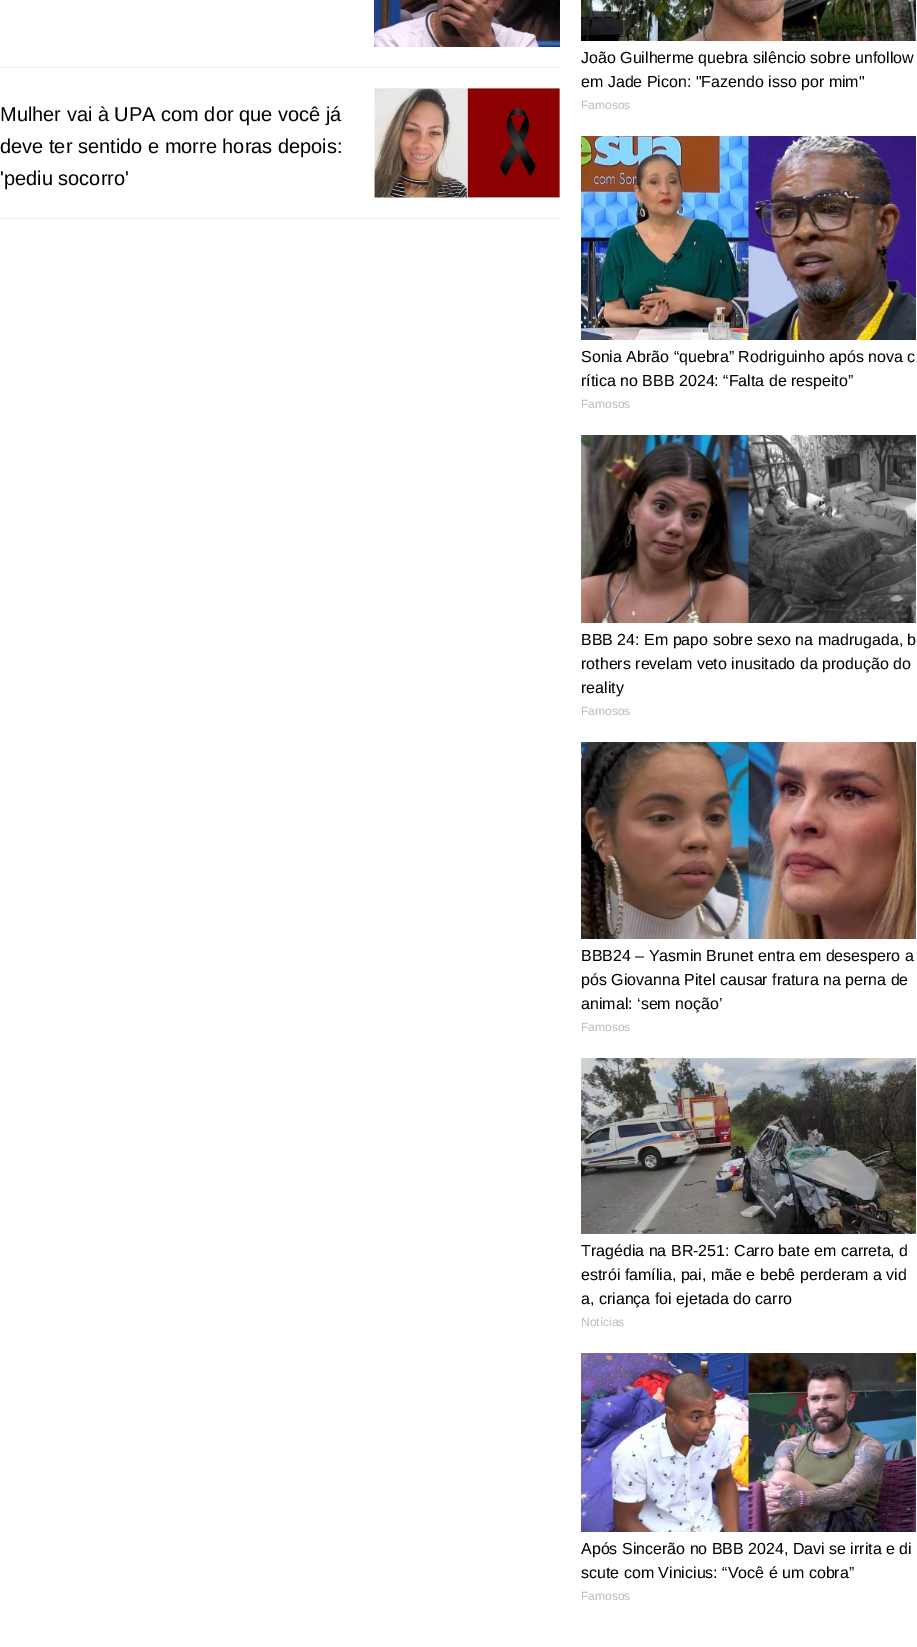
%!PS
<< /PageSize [917 1647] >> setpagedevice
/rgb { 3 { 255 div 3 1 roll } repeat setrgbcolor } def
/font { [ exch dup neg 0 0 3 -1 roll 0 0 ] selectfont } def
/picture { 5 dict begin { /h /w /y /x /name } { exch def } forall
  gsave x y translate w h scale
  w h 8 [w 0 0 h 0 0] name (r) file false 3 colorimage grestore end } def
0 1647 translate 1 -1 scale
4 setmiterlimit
255 255 255 rgb
0 0 917 1647 rectfill
238 238 238 rgb
0 67 561 1 rectfill
(img/1.rgb) 374 0 186 47 picture
0 218 561 1 rectfill
(img/2.rgb) 374 88 186 110 picture
(img/3.rgb) 581 0 335 41 picture
(img/4.rgb) 581 136 335 204 picture
(img/5.rgb) 581 435 335 188 picture
(img/6.rgb) 581 742 335 197 picture
(img/7.rgb) 581 1058 335 176 picture
(img/8.rgb) 581 1353 335 179 picture
/LiberationSans-Regular 20 font
0 0 0 rgb
[
  [(Mulher vai à UPA com dor que você já) 0 121]
  [(deve ter sentido e morre horas depois:) 0 153]
  [('pediu socorro') 0 185]
] { aload pop moveto show } forall
/LiberationSans-Regular 16 font
581 63 moveto (João Guilherme quebra silêncio sobre unfollow) show
581 87 moveto (em Jade Picon: "Fazendo isso por mim") show
/LiberationSans-Regular 12 font
187 187 187 rgb
581 109 moveto (Famosos) show
/LiberationSans-Regular 16 font
0 0 0 rgb
581 362 moveto (Sonia Abrão “quebra” Rodriguinho após nova c) show
581 386 moveto (rítica no BBB 2024: “Falta de respeito”) show
/LiberationSans-Regular 12 font
187 187 187 rgb
581 408 moveto (Famosos) show
/LiberationSans-Regular 16 font
0 0 0 rgb
[
  [(BBB 24: Em papo sobre sexo na madrugada, b) 581 645]
  [(rothers revelam veto inusitado da produção do) 581 669]
  [(reality) 581 693]
] { aload pop moveto show } forall
/LiberationSans-Regular 12 font
187 187 187 rgb
581 715 moveto (Famosos) show
/LiberationSans-Regular 16 font
0 0 0 rgb
[
  [(BBB24 – Yasmin Brunet entra em desespero a) 581 961]
  [(pós Giovanna Pitel causar fratura na perna de) 581 985]
  [(animal: ‘sem noção’) 581 1009]
] { aload pop moveto show } forall
/LiberationSans-Regular 12 font
187 187 187 rgb
581 1031 moveto (Famosos) show
/LiberationSans-Regular 16 font
0 0 0 rgb
[
  [(Tragédia na BR-251: Carro bate em carreta, d) 581 1256]
  [(estrói família, pai, mãe e bebê perderam a vid) 581 1280]
  [(a, criança foi ejetada do carro) 581 1304]
] { aload pop moveto show } forall
/LiberationSans-Regular 12 font
187 187 187 rgb
581 1326 moveto (Notícias) show
/LiberationSans-Regular 16 font
0 0 0 rgb
581 1554 moveto (Após Sincerão no BBB 2024, Davi se irrita e di) show
581 1578 moveto (scute com Vinicius: “Você é um cobra”) show
/LiberationSans-Regular 12 font
187 187 187 rgb
581 1600 moveto (Famosos) show
showpage
